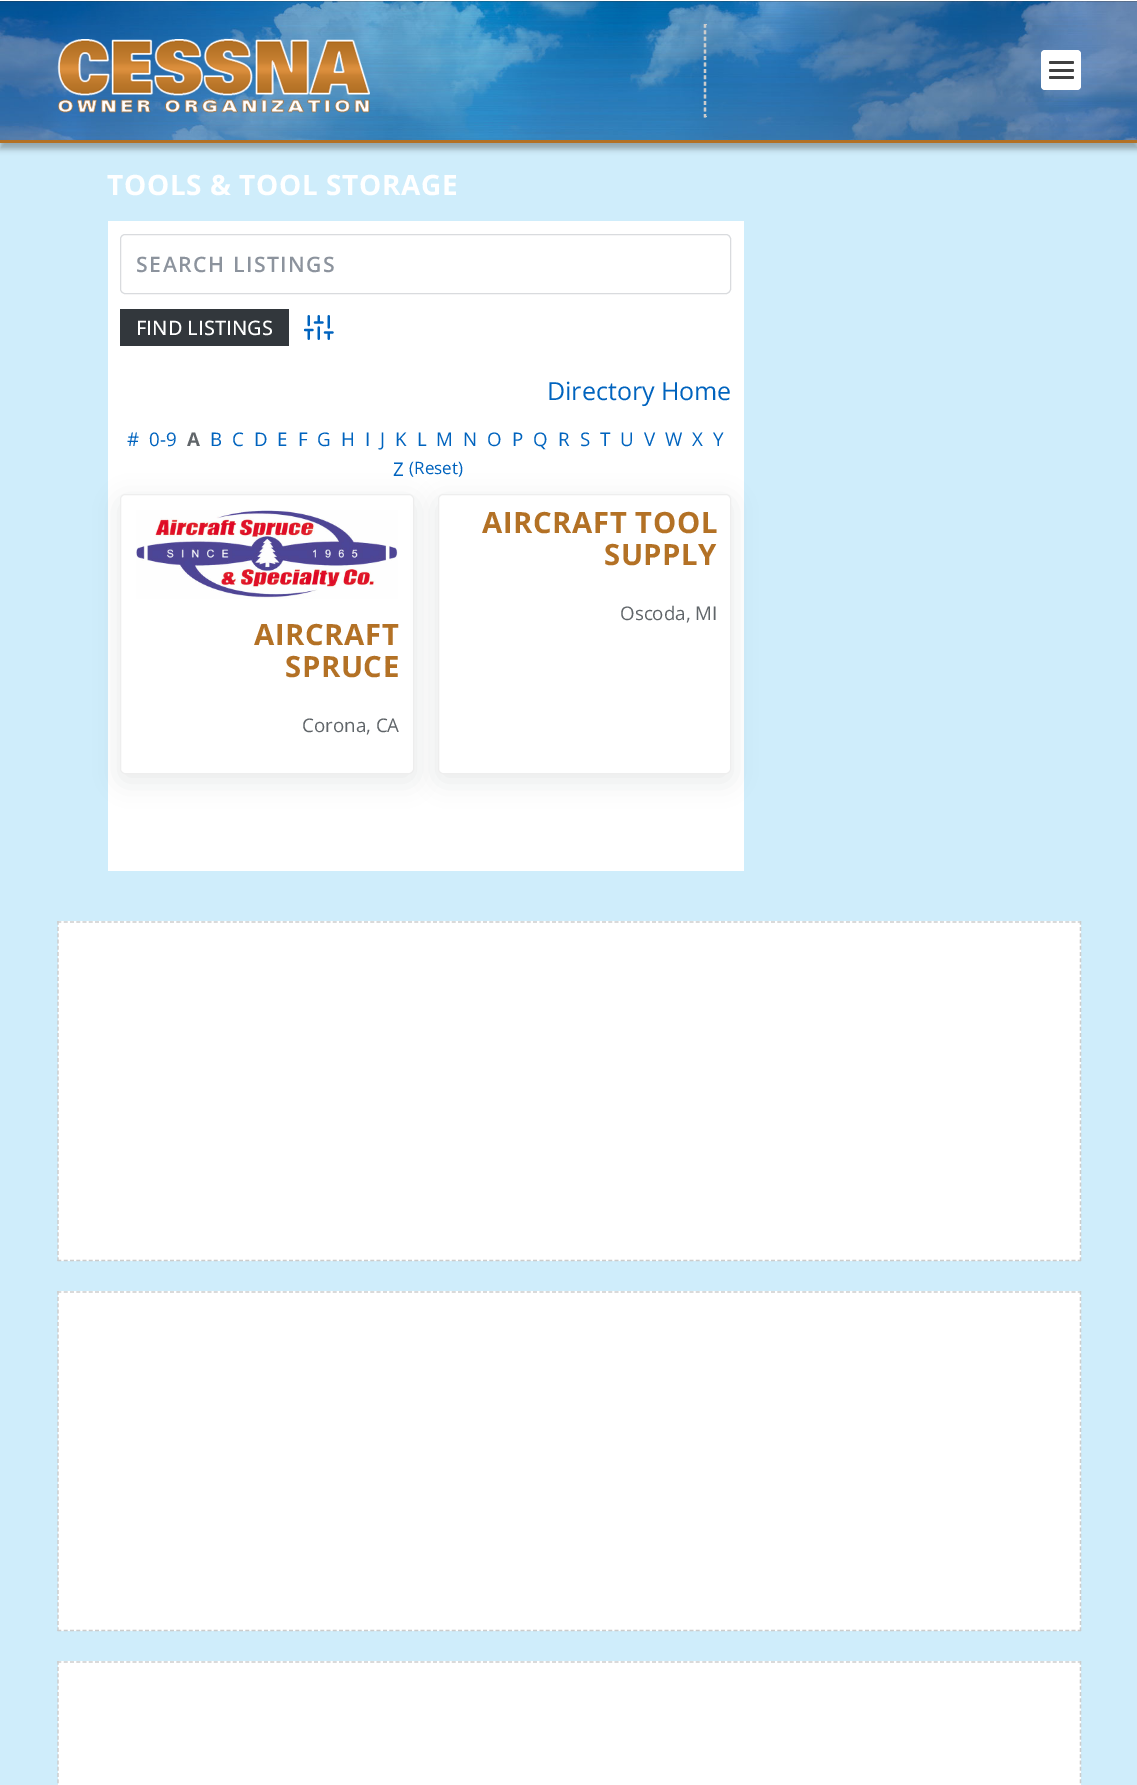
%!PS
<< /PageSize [1137 1785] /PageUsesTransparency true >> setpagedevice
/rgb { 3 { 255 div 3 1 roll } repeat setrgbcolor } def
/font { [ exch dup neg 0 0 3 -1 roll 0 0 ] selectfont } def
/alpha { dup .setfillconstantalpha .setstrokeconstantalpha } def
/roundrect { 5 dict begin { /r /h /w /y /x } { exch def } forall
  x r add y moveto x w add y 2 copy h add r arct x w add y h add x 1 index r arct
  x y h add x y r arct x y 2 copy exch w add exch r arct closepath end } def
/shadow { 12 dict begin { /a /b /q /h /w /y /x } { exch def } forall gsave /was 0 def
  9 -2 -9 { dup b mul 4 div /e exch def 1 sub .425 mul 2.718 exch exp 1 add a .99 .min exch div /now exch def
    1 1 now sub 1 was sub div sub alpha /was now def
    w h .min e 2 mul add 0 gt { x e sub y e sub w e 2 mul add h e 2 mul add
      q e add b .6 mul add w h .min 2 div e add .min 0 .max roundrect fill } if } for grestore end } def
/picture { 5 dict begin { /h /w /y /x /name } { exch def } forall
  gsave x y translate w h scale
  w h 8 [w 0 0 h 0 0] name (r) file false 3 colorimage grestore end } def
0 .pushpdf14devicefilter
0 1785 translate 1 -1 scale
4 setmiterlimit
207 237 251 rgb
0 0 1137 1785 rectfill
0 0 0 rgb
0 6 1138 143 0 3 0.3 shadow
(img/1.rgb) 0 1 1137 139 picture
255 255 255 rgb
0 0 1137 1 rectfill
179 113 37 rgb
0 140 1137 3 rectfill
(img/2.rgb) 57 39 313 74 picture
204 204 204 rgb
704 24 3 1 rectfill
1.2 setlinewidth
[3.75 2.68] 0 setdash
705.5 24 moveto 705.5 117.5 lineto stroke
704 116 3 1 rectfill
704.5 24 moveto 704.5 117.5 lineto stroke
255 255 255 rgb
1041 50 40 40 4 roundrect fill
64 64 64 rgb
1049 61 25 3 1.5 roundrect fill
1049 69 25 3 1.5 roundrect fill
1049 76 25 3 1.5 roundrect fill
255 255 255 rgb
108 221 636 650 rectfill
217 219 222 rgb
1 setlinewidth
[] 0 setdash
120.5 234.5 610 59 4.5 roundrect stroke
50 55 60 rgb
120 309 169 37 rectfill
(img/3.rgb) 304 315 30 25 picture
23 37 56 rgb
120 501 294 280 5 12.5 0.1 shadow
255 255 255 rgb
120.5 494.5 293 279 4.5 roundrect gsave fill grestore
238 238 238 rgb
stroke
23 37 56 rgb
438 501 293 280 5 12.5 0.1 shadow
255 255 255 rgb
438.5 494.5 292 279 4.5 roundrect gsave fill grestore
238 238 238 rgb
stroke
(img/4.rgb) 136 510 262 89 picture
255 255 255 rgb
58 921 1023 340 rectfill
204 204 204 rgb
1.2 setlinewidth
[3.75 2.51] 0 setdash
57.5 922 moveto 1081 922 lineto stroke
[3.75 2.48] 0 setdash
1080.5 921 moveto 1080.5 1261 lineto stroke
[3.75 2.51] 0 setdash
57.5 1260.5 moveto 1081 1260.5 lineto stroke
[3.75 2.48] 0 setdash
58 921 moveto 58 1261 lineto stroke
255 255 255 rgb
58 1291 1023 340 rectfill
204 204 204 rgb
[3.75 2.51] 0 setdash
57.5 1292 moveto 1081 1292 lineto stroke
[3.75 2.48] 0 setdash
1080.5 1291 moveto 1080.5 1631 lineto stroke
[3.75 2.51] 0 setdash
57.5 1630.5 moveto 1081 1630.5 lineto stroke
[3.75 2.48] 0 setdash
58 1291 moveto 58 1631 lineto stroke
255 255 255 rgb
58 1661 1023 124 rectfill
204 204 204 rgb
[3.75 2.51] 0 setdash
57.5 1662 moveto 1081 1662 lineto stroke
[3.75 2.48] 0 setdash
1080.5 1661 moveto 1080.5 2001 lineto stroke
58 1661 moveto 58 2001 lineto stroke
/OpenSans-Bold 28 font
255 255 255 rgb
107 195 moveto 0.6 0 (TOOLS & TOOL STORAGE) ashow
/OpenSans-SemiBold 21.25 font
140 147 157 rgb
136 272 moveto 1.5 0 (SEARCH LISTINGS) ashow
/OpenSans-Medium 20 font
255 255 255 rgb
136 335 moveto (FIND LISTINGS) show
/OpenSans-Regular 25 font
0 99 190 rgb
547 400 moveto (Directory Home) show
/OpenSans-Regular 18.75 font
127 446 moveto (#) show
149 446 moveto (0-9) show
/OpenSans-Bold 18.75 font
96 101 105 rgb
187 446 moveto (A) show
/OpenSans-Regular 18.75 font
0 99 190 rgb
[
  [(B) 210 446]
  [(C) 232 446]
  [(D) 254 446]
  [(E) 277 446]
  [(F) 298 446]
  [(G) 317 446]
  [(H) 341 446]
  [(I) 365 446]
  [(J) 380 446]
  [(K) 395 446]
  [(L) 417 446]
  [(M) 436 446]
  [(N) 463 446]
  [(O) 487 446]
  [(P) 512 446]
  [(Q) 533 446]
  [(R) 558 446]
  [(S) 580 446]
  [(T) 600 446]
  [(U) 620 446]
  [(V) 644 446]
  [(W) 665 446]
  [(X) 692 446]
  [(Y) 713 446]
  [(Z) 393 476]
] { aload pop moveto show } forall
/OpenSans-Regular 17 font
409 474 moveto (\(Reset\)) show
/OpenSans-Bold 29.25 font
179 113 37 rgb
482 533 moveto 0.6 0 (AIRCRAFT TOOL) ashow
604 565 moveto 0.6 0 (SUPPLY) ashow
/OpenSans-Regular 18.75 font
96 101 105 rgb
620 620 moveto (Oscoda, MI) show
/OpenSans-Bold 29.25 font
179 113 37 rgb
254 645 moveto 0.6 0 (AIRCRAFT) ashow
285 677 moveto 0.6 0 (SPRUCE) ashow
/OpenSans-Regular 18.75 font
96 101 105 rgb
302 732 moveto (Corona, CA) show
.poppdf14devicefilter showpage
